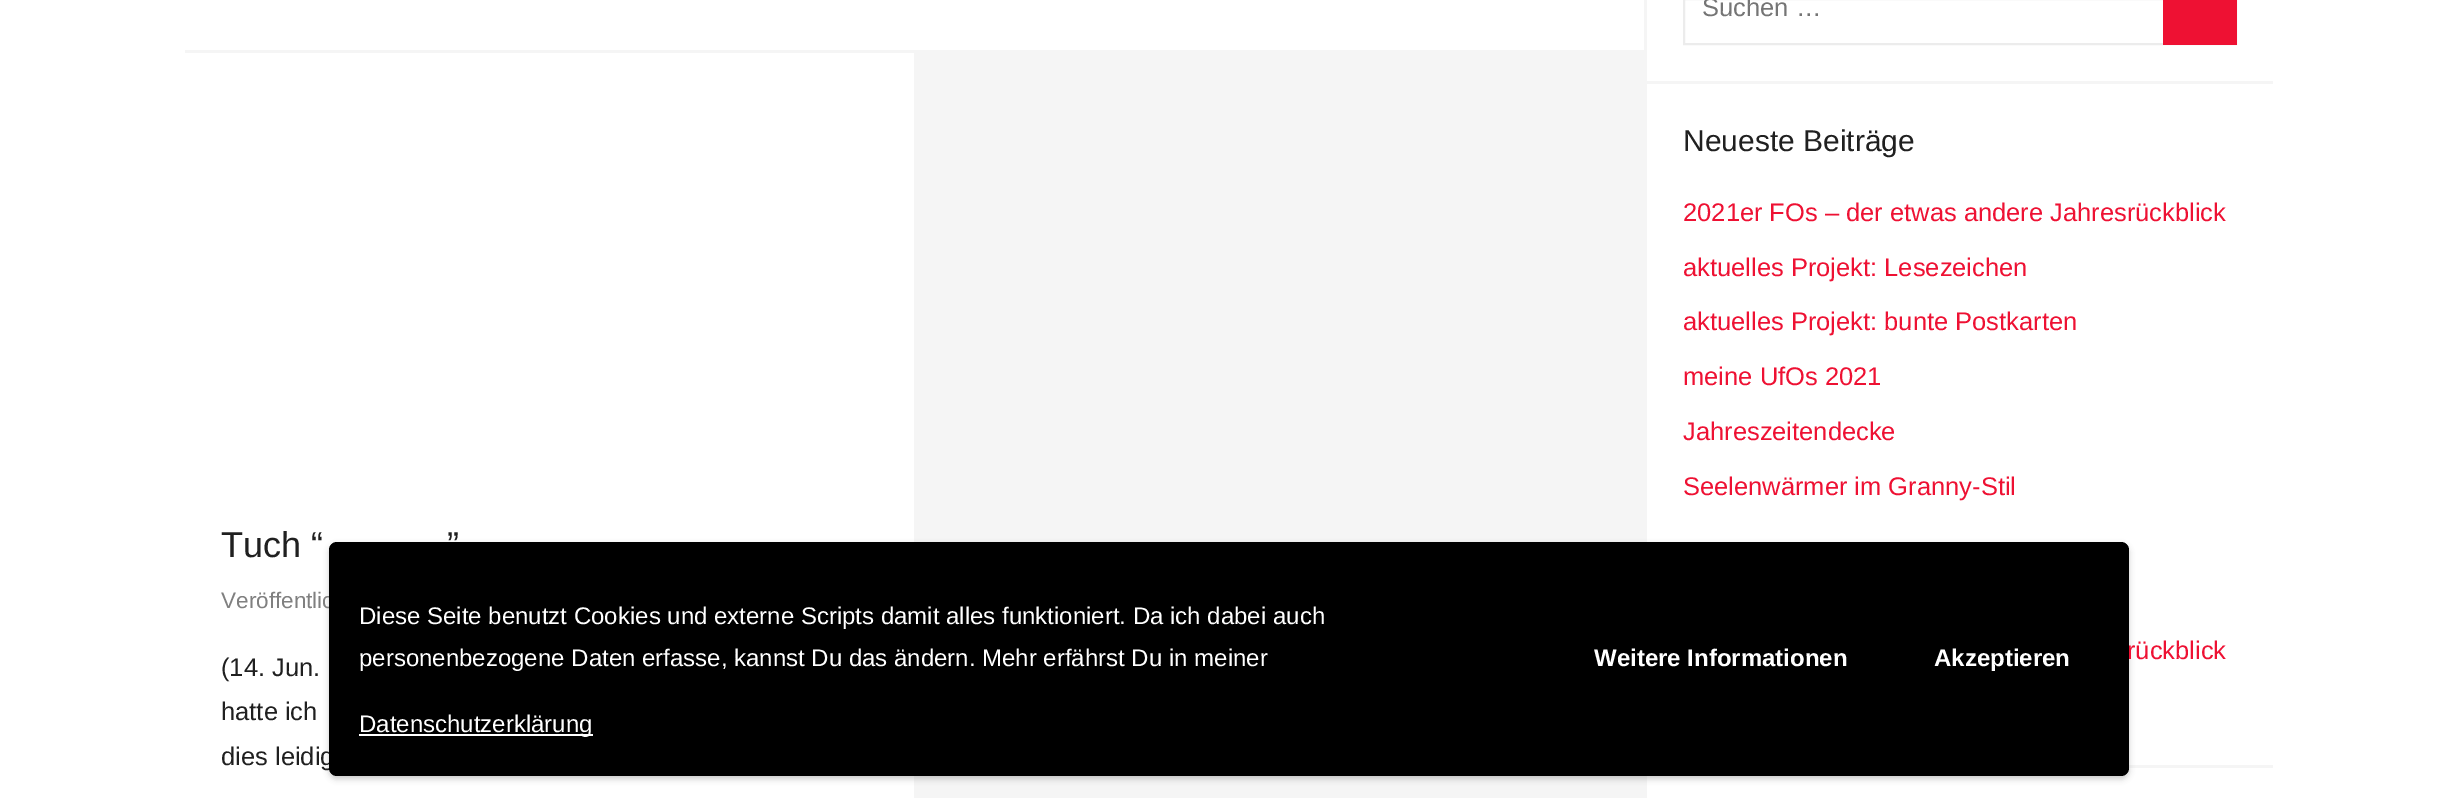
%!PS
<< /PageSize [2456 798] /PageUsesTransparency true >> setpagedevice
/rgb { 3 { 255 div 3 1 roll } repeat setrgbcolor } def
/font { [ exch dup neg 0 0 3 -1 roll 0 0 ] selectfont } def
/alpha { dup .setfillconstantalpha .setstrokeconstantalpha } def
/roundrect { 5 dict begin { /r /h /w /y /x } { exch def } forall
  x r add y moveto x w add y 2 copy h add r arct x w add y h add x 1 index r arct
  x y h add x y r arct x y 2 copy exch w add exch r arct closepath end } def
/shadow { 12 dict begin { /a /b /q /h /w /y /x } { exch def } forall gsave /was 0 def
  9 -2 -9 { dup b mul 4 div /e exch def 1 sub .425 mul 2.718 exch exp 1 add a .99 .min exch div /now exch def
    1 1 now sub 1 was sub div sub alpha /was now def
    w h .min e 2 mul add 0 gt { x e sub y e sub w e 2 mul add h e 2 mul add
      q e add b .6 mul add w h .min 2 div e add .min 0 .max roundrect fill } if } for grestore end } def
0 .pushpdf14devicefilter
0 798 translate 1 -1 scale
4 setmiterlimit
255 255 255 rgb
0 0 2456 798 rectfill
[
  [1644 0 3 798 245 245 245]
  [185 50 1459 3 245 245 245]
  [914 53 730 745 245 245 245]
  [1647 81 626 3 245 245 245]
] { aload pop rgb rectfill } forall
236 236 236 rgb
2 setlinewidth
1684 -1 552 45 rectstroke
238 17 51 rgb
2163 0 74 45 rectfill
245 245 245 rgb
2129 765 144 3 rectfill
0 0 0 rgb
329 545 1800 234 8 3 0.2 shadow
/LiberationSans-Regular 36 font
32 32 32 rgb
221 557 moveto (Tuch “) show
447 557 moveto (”) show
/LiberationSans-Regular 22.5 font
128 128 128 rgb
221 608 moveto (Veröffentlic) show
/LiberationSans-Regular 25.5 font
32 32 32 rgb
[
  [(\(14. Jun.) 221 676]
  [(hatte ich) 221 720]
  [(dies leidig) 221 765]
] { aload pop moveto show } forall
117 117 117 rgb
1702 16 moveto (Suchen …) show
/LiberationSans-Regular 30 font
32 32 32 rgb
1683 151 moveto (Neueste Beiträge) show
/LiberationSans-Regular 25.5 font
238 17 51 rgb
[
  [(2021er FOs – der etwas andere Jahresrückblick) 1683 221]
  [(aktuelles Projekt: Lesezeichen) 1683 276]
  [(aktuelles Projekt: bunte Postkarten) 1683 330]
  [(meine UfOs 2021) 1683 385]
  [(Jahreszeitendecke) 1683 440]
  [(Seelenwärmer im Granny-Stil) 1683 495]
  [(rückblick) 2127 659]
] { aload pop moveto show } forall
0 0 0 rgb
329 542 1800 234 8 roundrect fill
/LiberationSans-Regular 24 font
255 255 255 rgb
359 624 moveto (Diese Seite benutzt Cookies und externe Scripts damit alles funktioniert. Da ich dabei auch) show
359 666 moveto (personenbezogene Daten erfasse, kannst Du das ändern. Mehr erfährst Du in meiner) show
359 734 234 2 rectfill
359 732 moveto (Datenschutzerklärung) show
/LiberationSans-Bold 24 font
1594 666 moveto (Weitere Informationen) show
1934 666 moveto (Akzeptieren) show
.poppdf14devicefilter showpage
